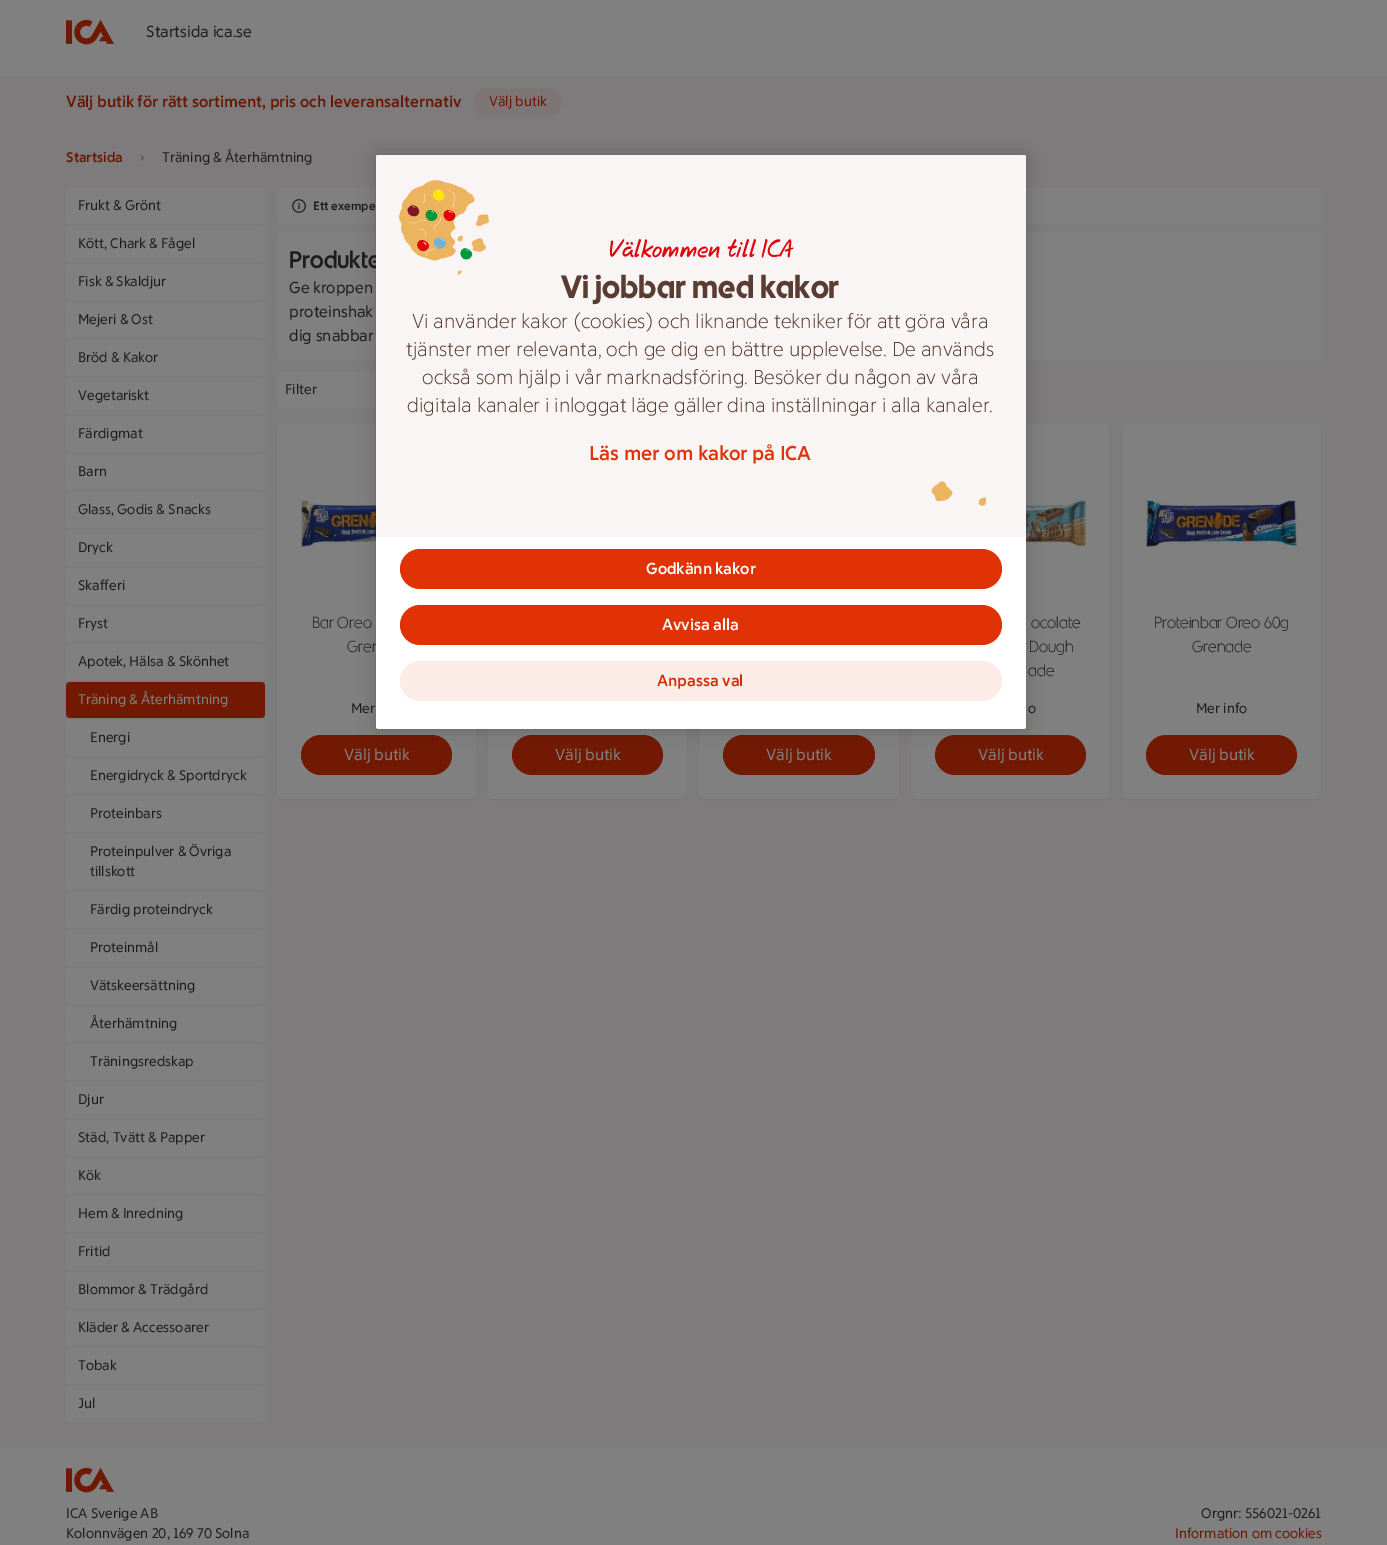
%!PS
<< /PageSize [1387 1545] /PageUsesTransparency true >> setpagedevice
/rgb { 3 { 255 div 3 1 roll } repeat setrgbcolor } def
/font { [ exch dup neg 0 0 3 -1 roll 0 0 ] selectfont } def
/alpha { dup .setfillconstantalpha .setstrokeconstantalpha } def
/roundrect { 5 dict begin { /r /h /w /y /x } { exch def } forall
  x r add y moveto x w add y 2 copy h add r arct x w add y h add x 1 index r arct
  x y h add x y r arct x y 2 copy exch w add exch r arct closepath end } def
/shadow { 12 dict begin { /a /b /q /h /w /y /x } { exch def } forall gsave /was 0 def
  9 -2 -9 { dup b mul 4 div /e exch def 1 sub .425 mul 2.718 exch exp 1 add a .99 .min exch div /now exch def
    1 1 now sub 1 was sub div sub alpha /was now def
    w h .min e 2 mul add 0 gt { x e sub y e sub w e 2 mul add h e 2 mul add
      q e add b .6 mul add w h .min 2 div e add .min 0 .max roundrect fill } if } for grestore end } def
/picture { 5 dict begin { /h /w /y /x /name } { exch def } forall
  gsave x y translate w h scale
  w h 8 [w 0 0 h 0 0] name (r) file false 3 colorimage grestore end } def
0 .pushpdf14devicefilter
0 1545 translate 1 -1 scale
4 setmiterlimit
125 123 123 rgb
0 0 1387 1545 rectfill
128 128 128 rgb
0 0 1387 76 rectfill
(img/1.rgb) 66 19 48 26 picture
126 118 116 rgb
473 88 89 28 14 roundrect fill
(img/2.rgb) 141 155 3 6 picture
128 128 128 rgb
66 188 199 36 4 roundrect fill
66 226 199 36 4 roundrect fill
66 264 199 36 4 roundrect fill
66 302 199 36 4 roundrect fill
66 340 199 36 4 roundrect fill
66 378 199 36 4 roundrect fill
66 416 199 36 4 roundrect fill
66 454 199 36 4 roundrect fill
66 492 199 36 4 roundrect fill
66 530 199 36 4 roundrect fill
66 568 199 36 4 roundrect fill
66 606 199 36 4 roundrect fill
66 644 199 36 4 roundrect fill
113 25 3 rgb
66 682 199 36 4 roundrect fill
128 128 128 rgb
66 720 199 36 4 roundrect fill
66 758 199 36 4 roundrect fill
66 796 199 36 4 roundrect fill
66 834 199 56 4 roundrect fill
66 892 199 36 4 roundrect fill
66 930 199 36 4 roundrect fill
66 968 199 36 4 roundrect fill
66 1006 199 36 4 roundrect fill
66 1044 199 36 4 roundrect fill
66 1082 199 36 4 roundrect fill
66 1120 199 36 4 roundrect fill
66 1158 199 36 4 roundrect fill
66 1196 199 36 4 roundrect fill
66 1234 199 36 4 roundrect fill
66 1272 199 36 4 roundrect fill
66 1310 199 36 4 roundrect fill
66 1348 199 36 4 roundrect fill
66 1386 199 36 4 roundrect fill
277 188 1044 36 4 roundrect fill
(img/3.rgb) 292 199 14 14 picture
277 232 1044 128 4 roundrect fill
277 372 240 36 4 roundrect fill
113 116 120 rgb
277 425 199 375 6 1 1 shadow
128 128 128 rgb
277 424 199 375 6 roundrect fill
(img/4.rgb) 301 500 75 48 picture
113 25 3 rgb
301 735 151 40 20 roundrect fill
113 116 120 rgb
488 425 199 375 6 1 1 shadow
128 128 128 rgb
488 424 199 375 6 roundrect fill
113 25 3 rgb
512 735 151 40 20 roundrect fill
113 116 120 rgb
699 425 200 375 6 1 1 shadow
128 128 128 rgb
699 424 200 375 6 roundrect fill
113 25 3 rgb
723 735 152 40 20 roundrect fill
113 116 120 rgb
911 425 199 375 6 1 1 shadow
128 128 128 rgb
911 424 199 375 6 roundrect fill
(img/5.rgb) 1026 500 60 48 picture
113 25 3 rgb
935 735 151 40 20 roundrect fill
113 116 120 rgb
1122 425 199 375 6 1 1 shadow
128 128 128 rgb
1122 424 199 375 6 roundrect fill
(img/6.rgb) 1146 500 151 47 picture
113 25 3 rgb
1146 735 151 40 20 roundrect fill
128 128 128 rgb
0 1448 1387 97 rectfill
(img/1.rgb) 66 1467 48 26 picture
0 0 0 rgb
376 155 650 574 2.5 9 0.2 shadow
/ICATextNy-Regular 16 font
29 29 29 rgb
146 37 moveto (Startsida ica.se) show
/ICATextNy-Bold 16 font
104 23 3 rgb
66 107 moveto (Välj butik för rätt sortiment, pris och leveransalternativ) show
/ICATextNy-Regular 14 font
489 106 moveto (Välj butik) show
/ICATextNy-Bold 14 font
66 162 moveto (Startsida) show
/ICATextNy-Regular 14 font
29 29 29 rgb
[
  [(Träning & Återhämtning) 162 162]
  [(Frukt & Grönt) 78 210]
  [(Kött, Chark & Fågel) 78 248]
  [(Fisk & Skaldjur) 78 286]
  [(Mejeri & Ost) 78 324]
  [(Bröd & Kakor) 78 362]
  [(Vegetariskt) 78 400]
  [(Färdigmat) 78 438]
  [(Barn) 78 476]
  [(Glass, Godis & Snacks) 78 514]
  [(Dryck) 78 552]
  [(Skafferi) 78 590]
  [(Fryst) 78 628]
  [(Apotek, Hälsa & Skönhet) 78 666]
] { aload pop moveto show } forall
128 128 128 rgb
78 704 moveto (Träning & Återhämtning) show
29 29 29 rgb
[
  [(Energi) 90 742]
  [(Energidryck & Sportdryck) 90 780]
  [(Proteinbars) 90 818]
  [(Proteinpulver & Övriga) 90 856]
  [(tillskott) 90 876]
  [(Färdig proteindryck) 90 914]
  [(Proteinmål) 90 952]
  [(Vätskeersättning) 90 990]
  [(Återhämtning) 90 1028]
  [(Träningsredskap) 90 1066]
  [(Djur) 78 1104]
  [(Städ, Tvätt & Papper) 78 1142]
  [(Kök) 78 1180]
  [(Hem & Inredning) 78 1218]
  [(Fritid) 78 1256]
  [(Blommor & Trädgård) 78 1294]
  [(Kläder & Accessoarer) 78 1332]
  [(Tobak) 78 1370]
  [(Jul) 78 1408]
] { aload pop moveto show } forall
/ICATextNy-Bold 12 font
313 210 moveto (Ett exempe) show
/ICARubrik-Medium 24 font
289 268 moveto (Produkte) show
/ICATextNy-Regular 16 font
[
  [(Ge kroppen) 289 293]
  [(proteinshak) 289 317]
  [(dig snabbar) 289 341]
] { aload pop moveto show } forall
/ICATextNy-Regular 14 font
285 394 moveto (Filter) show
/ICARubrik-Light 16 font
312 628 moveto (Bar Oreo) show
347 652 moveto (Gren) show
/ICATextNy-Regular 14 font
351 713 moveto (Mer) show
/ICATextNy-Regular 16 font
128 128 128 rgb
[
  [(Välj butik) 344 760]
  [(Välj butik) 555 760]
  [(Välj butik) 766 760]
] { aload pop moveto show } forall
/ICARubrik-Light 16 font
29 29 29 rgb
[
  [(ocolate) 1031 628]
  [(Dough) 1029 652]
  [(ade) 1028 676]
] { aload pop moveto show } forall
/ICATextNy-Regular 14 font
1028 713 moveto (o) show
/ICATextNy-Regular 16 font
128 128 128 rgb
978 760 moveto (Välj butik) show
/ICARubrik-Light 16 font
29 29 29 rgb
1154 628 moveto (Proteinbar Oreo 60g) show
1192 652 moveto (Grenade) show
/ICATextNy-Regular 14 font
1196 713 moveto (Mer info) show
/ICATextNy-Regular 16 font
128 128 128 rgb
1189 760 moveto (Välj butik) show
/ICATextNy-Regular 14 font
29 29 29 rgb
[
  [(ICA Sverige AB) 66 1518]
  [(Kolonnvägen 20, 169 70 Solna) 66 1538]
  [(Orgnr: 556021-0261) 1201 1518]
] { aload pop moveto show } forall
104 23 3 rgb
1175 1538 moveto (Information om cookies) show
255 255 255 rgb
376 155 650 574 2.5 roundrect fill
249 245 245 rgb
378.5 155 moveto 1023.5 155 lineto 1025 155 1026 156 1026 157.5 curveto 1026 537 lineto 376 537 lineto 376 157.5 lineto 376 156 377 155 378.5 155 curveto closepath fill
(img/7.rgb) 399 180 90 95 picture
/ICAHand-Italic 24 font
227 0 11 rgb
608 257 moveto (Välkommen till ICA) show
/ICARubrik-Bold 32 font
89 61 50 rgb
561 298 moveto (Vi jobbar med kakor) show
/ICATextNy-Light 20 font
[
  [(Vi använder kakor \(cookies\) och liknande tekniker för att göra våra) 412 328]
  [(tjänster mer relevanta, och ge dig en bättre upplevelse. De används) 406 356]
  [(också som hjälp i vår marknadsföring. Besöker du någon av våra) 422 384]
  [(digitala kanaler i inloggat läge gäller dina inställningar i alla kanaler.) 407 412]
] { aload pop moveto show } forall
/ICATextNy-Bold 20 font
225 50 5 rgb
589 460 moveto (Läs mer om kakor på ICA) show
(img/8.rgb) 931 481 55 25 picture
400 549 602 40 20 roundrect fill
/ICATextNy-Bold 16 font
255 255 255 rgb
646 574 moveto (Godkänn kakor) show
225 50 5 rgb
400 605 602 40 20 roundrect fill
255 255 255 rgb
662 630 moveto (Avvisa alla) show
252 236 231 rgb
400 661 602 40 20 roundrect fill
207 46 5 rgb
657 686 moveto (Anpassa val) show
.poppdf14devicefilter showpage
